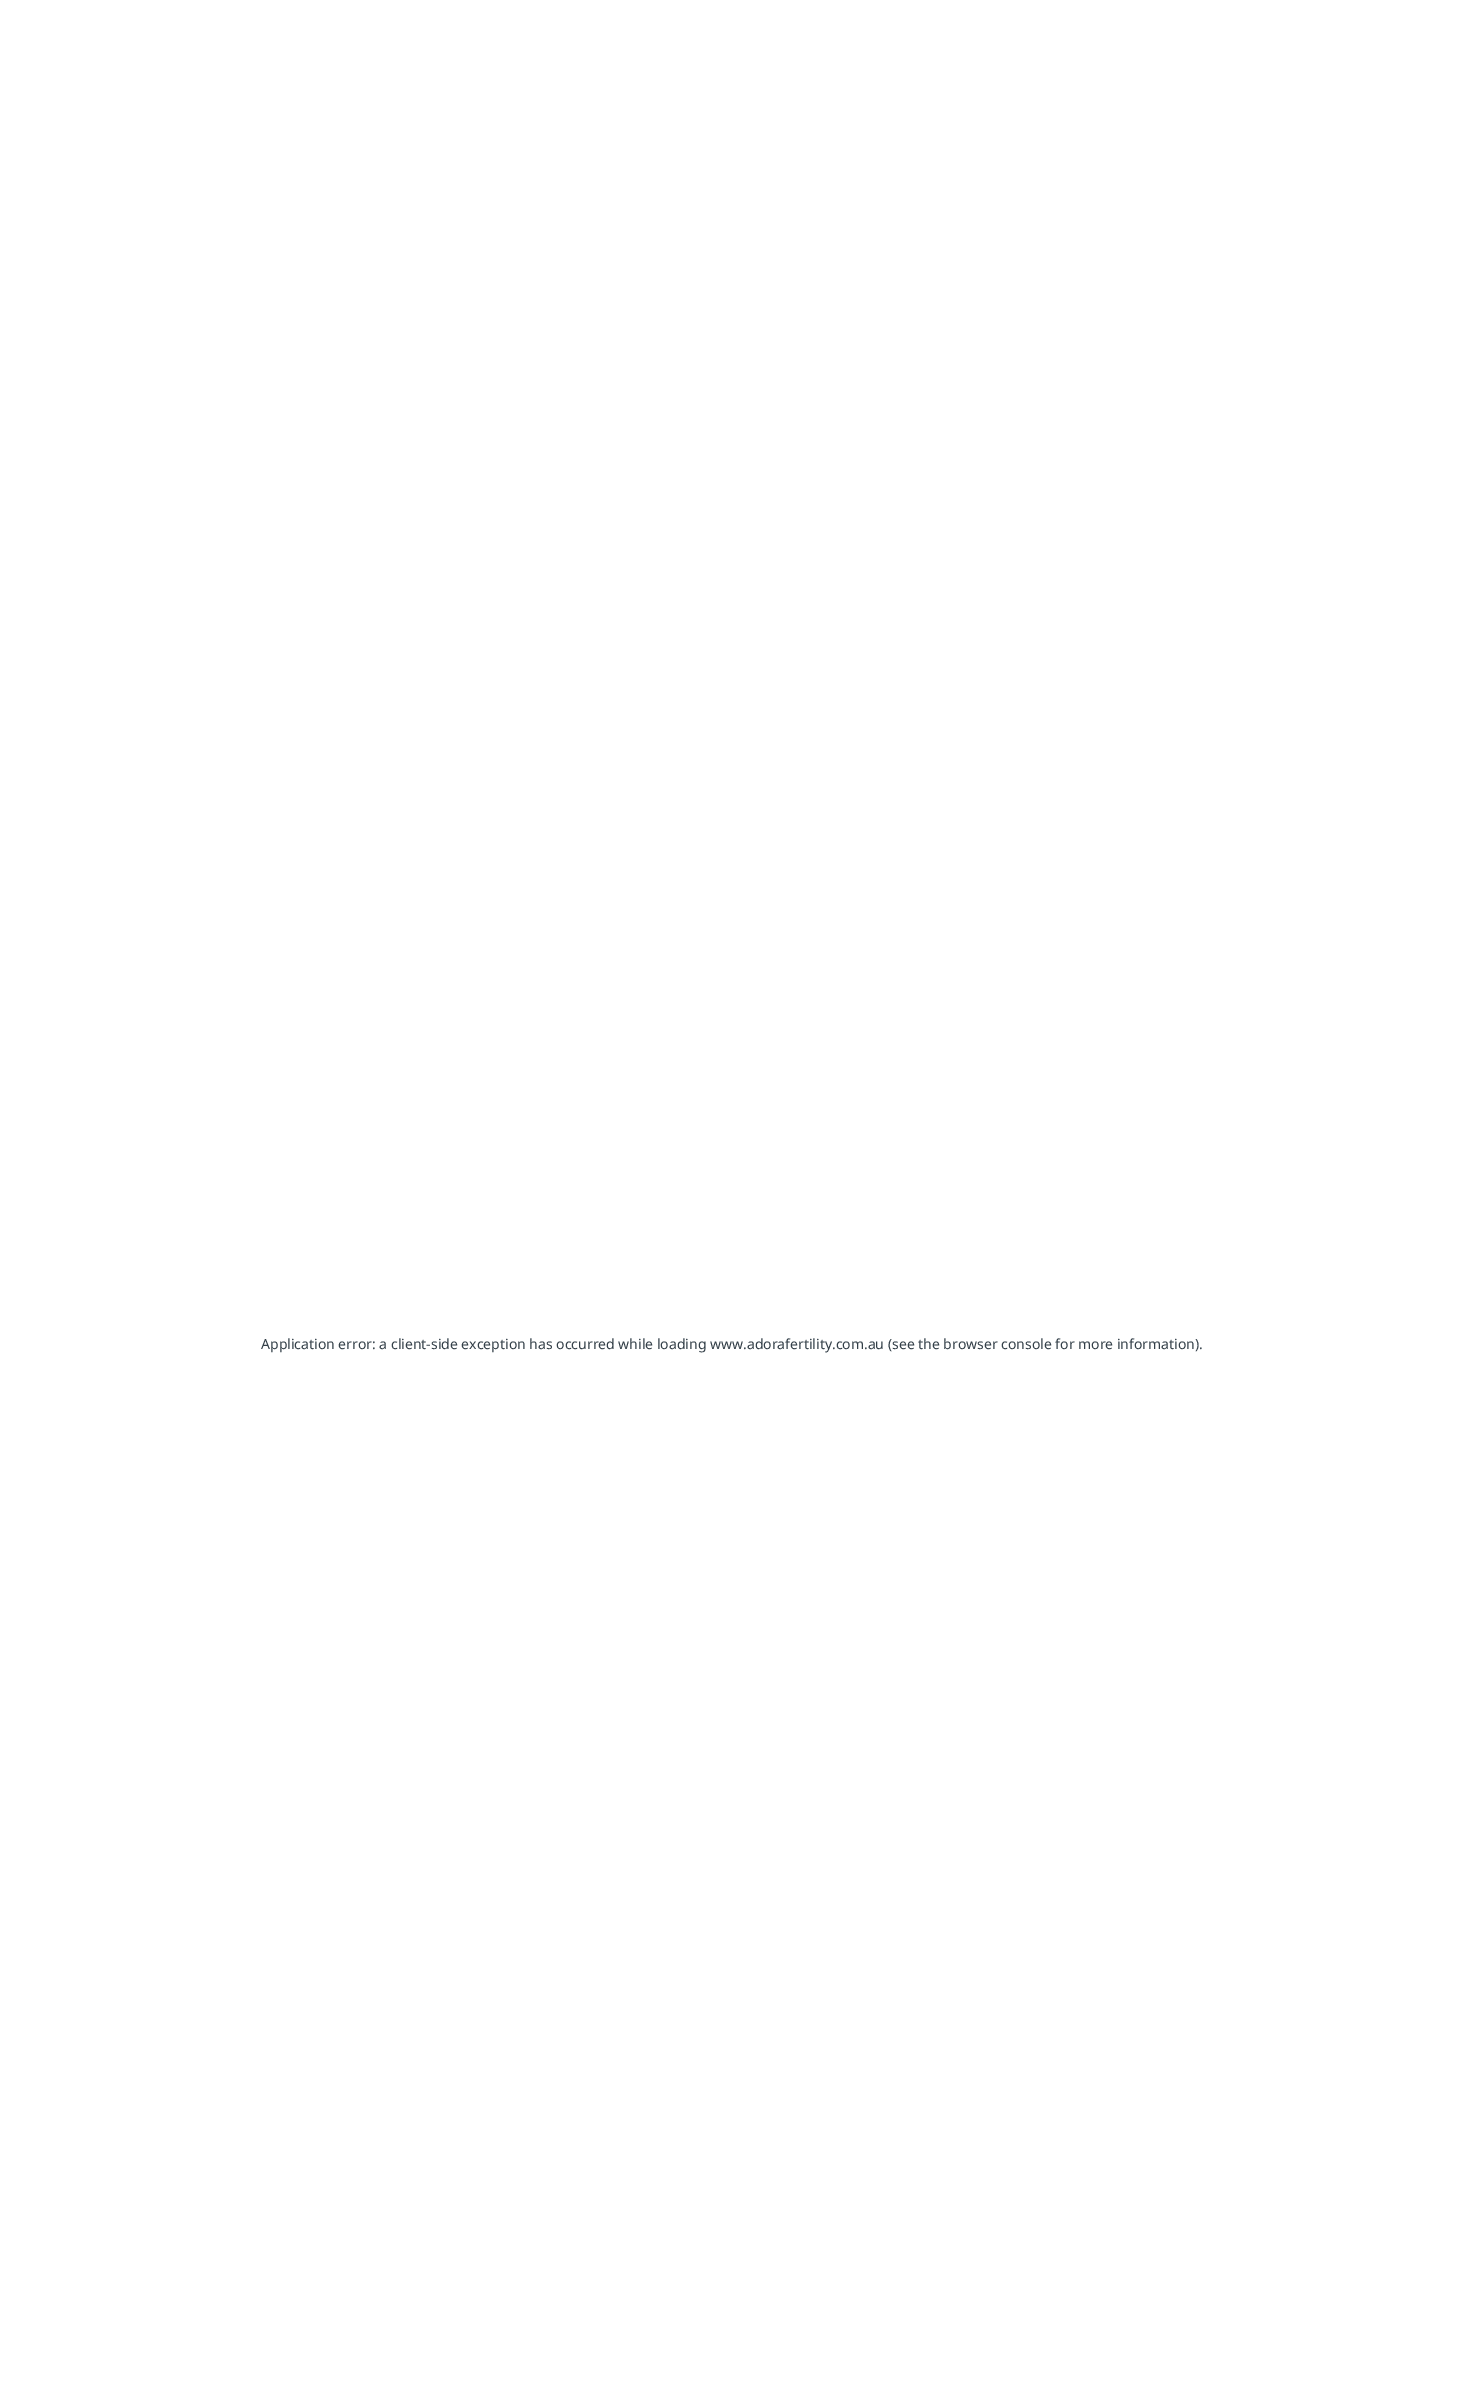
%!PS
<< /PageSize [1480 2403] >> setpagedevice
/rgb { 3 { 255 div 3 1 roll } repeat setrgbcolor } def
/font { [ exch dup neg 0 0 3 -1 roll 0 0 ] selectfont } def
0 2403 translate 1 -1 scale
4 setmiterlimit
255 255 255 rgb
0 0 1480 2403 rectfill
/NotoSans-Regular 14 font
51 63 72 rgb
261 1349 moveto (Application error: a client-side exception has occurred while loading www.adorafertility.com.au \(see the browser console for more information\).) show
showpage
